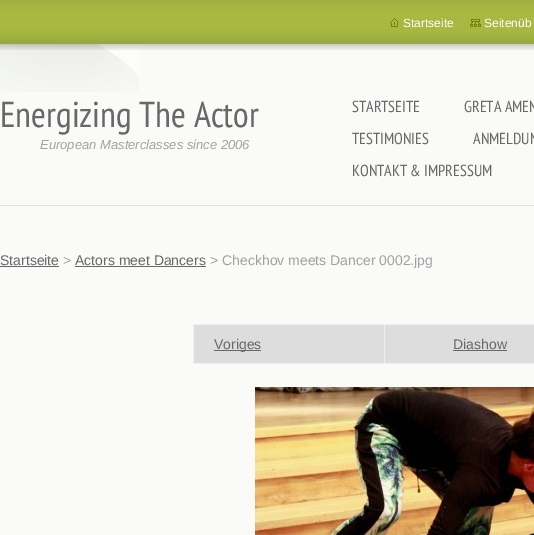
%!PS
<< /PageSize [534 535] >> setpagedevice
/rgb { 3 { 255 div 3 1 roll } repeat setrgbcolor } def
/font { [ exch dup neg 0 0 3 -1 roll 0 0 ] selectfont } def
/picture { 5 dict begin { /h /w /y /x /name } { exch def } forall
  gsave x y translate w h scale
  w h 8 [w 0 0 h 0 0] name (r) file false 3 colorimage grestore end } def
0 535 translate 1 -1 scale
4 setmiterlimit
250 250 248 rgb
0 0 534 535 rectfill
(img/1.rgb) 0 44 139 48 picture
226 226 225 rgb
0 205 534 1 rectfill
(img/2.rgb) 0 0 534 50 picture
(img/3.rgb) 390 18 9 9 picture
(img/4.rgb) 470 19 11 8 picture
[
  [0 266 59 1 104 104 104]
  [75 266 131 1 104 104 104]
  [193 324 341 1 239 239 237]
  [193 324 1 40 239 239 237]
  [194 325 190 38 221 221 221]
  [384 363 150 1 239 239 237]
  [384 324 1 40 239 239 237]
  [193 363 192 1 239 239 237]
  [214 350 47 1 104 104 104]
  [385 325 149 38 221 221 221]
  [453 350 54 1 104 104 104]
] { aload pop rgb rectfill } forall
(img/5.rgb) 255 387 279 148 picture
/LiberationSans-Regular 12 font
255 255 255 rgb
403 27 moveto (Startseite) show
484 27 moveto (Seitenüb) show
/PTSansNarrow-Regular 36 font
104 104 104 rgb
0 127 moveto (Energizing The Actor) show
/LiberationSans-Italic 13 font
163 161 161 rgb
40 149 moveto (European Masterclasses since 2006) show
/PTSansNarrow-Regular 16 font
104 104 104 rgb
[
  [(STARTSEITE) 352 112]
  [(GRETA AMEN) 464 112]
  [(TESTIMONIES) 352 144]
  [(ANMELDUN) 473 144]
  [(KONTAKT & IMPRESSUM) 352 176]
] { aload pop moveto show } forall
/LiberationSans-Regular 14 font
0 265 moveto (Startseite) show
163 161 161 rgb
63 265 moveto (>) show
104 104 104 rgb
75 265 moveto (Actors meet Dancers) show
163 161 161 rgb
210 265 moveto (> Checkhov meets Dancer 0002.jpg) show
104 104 104 rgb
214 349 moveto (Voriges) show
453 349 moveto (Diashow) show
showpage
